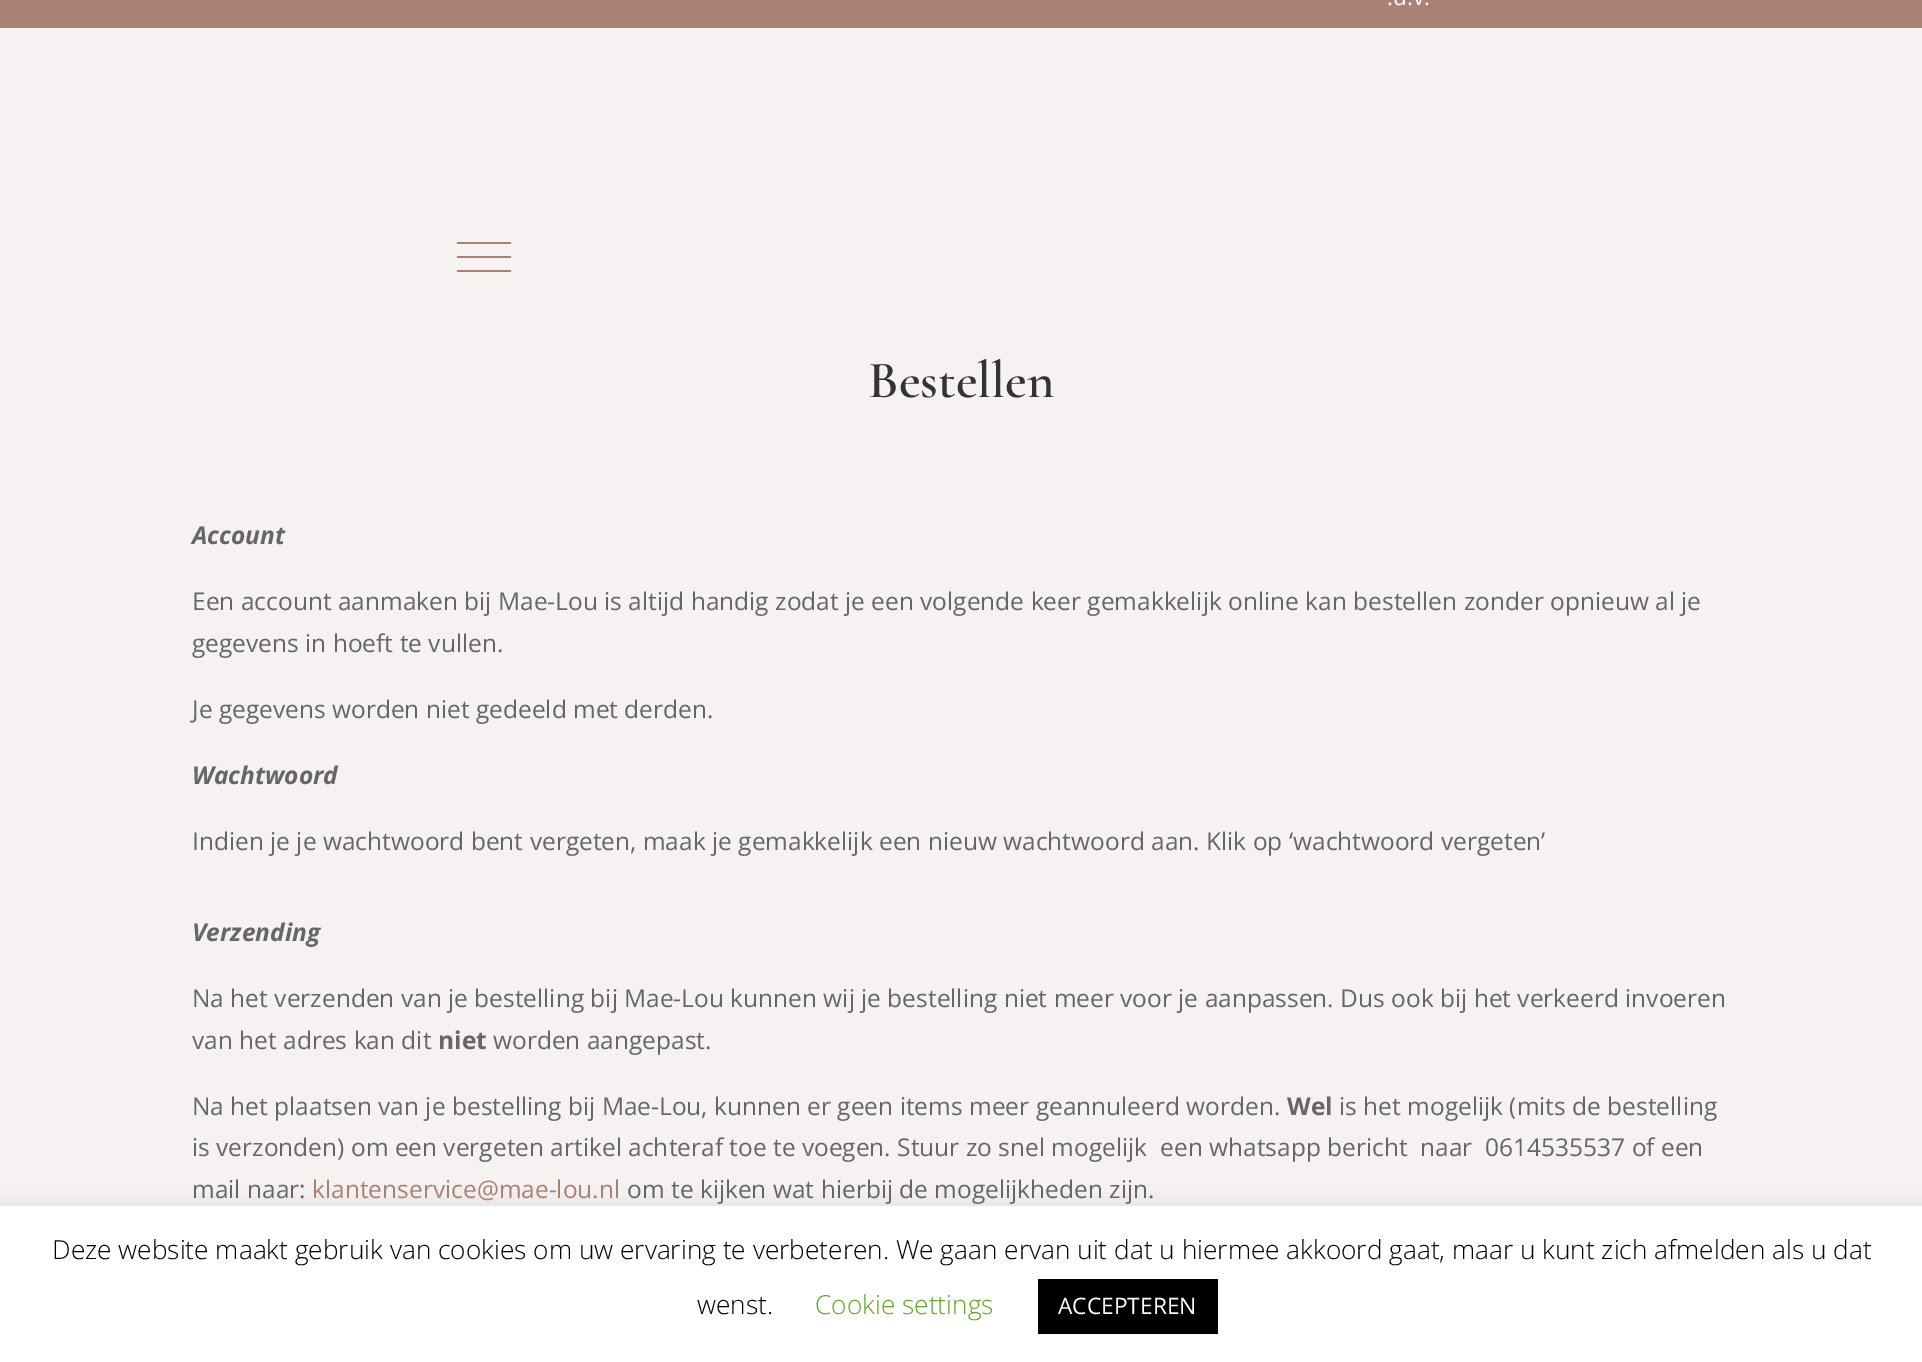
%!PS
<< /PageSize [1922 1362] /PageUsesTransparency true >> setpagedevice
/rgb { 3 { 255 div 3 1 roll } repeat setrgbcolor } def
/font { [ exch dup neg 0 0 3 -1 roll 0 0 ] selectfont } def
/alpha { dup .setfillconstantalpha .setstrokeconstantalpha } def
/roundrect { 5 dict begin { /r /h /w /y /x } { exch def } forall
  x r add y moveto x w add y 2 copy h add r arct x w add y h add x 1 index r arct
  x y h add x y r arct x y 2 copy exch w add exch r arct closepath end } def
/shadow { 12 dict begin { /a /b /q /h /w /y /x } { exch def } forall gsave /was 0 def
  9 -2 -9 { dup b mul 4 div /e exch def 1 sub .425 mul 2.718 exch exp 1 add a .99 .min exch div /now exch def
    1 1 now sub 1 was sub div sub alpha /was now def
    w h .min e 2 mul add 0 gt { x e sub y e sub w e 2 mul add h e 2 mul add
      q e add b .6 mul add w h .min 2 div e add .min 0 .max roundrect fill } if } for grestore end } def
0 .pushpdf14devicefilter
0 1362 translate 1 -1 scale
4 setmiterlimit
245 242 241 rgb
0 0 1922 1362 rectfill
[
  [0 0 1922 28 169 129 117]
  [457 256 54 2 169 129 117]
  [457 242 54 2 169 129 117]
  [457 270 54 2 169 129 117]
] { aload pop rgb rectfill } forall
172 171 171 rgb
0 1204 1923 158 0 9 0.3 shadow
255 255 255 rgb
0 1206 1922 156 rectfill
0 0 0 rgb
1038 1279 180 55 rectfill
/OpenSans-Regular 22.75 font
255 255 255 rgb
1387 5 moveto (.u.v.) show
/CormorantGaramond-SemiBold 52.5 font
51 51 51 rgb
868 397 moveto (Bestellen) show
/OpenSans-BoldItalic 24.5 font
102 102 102 rgb
192 544 moveto (Account) show
/OpenSans-Regular 24.5 font
[
  [(Een account aanmaken bij Mae-Lou is altijd handig zodat je een volgende keer gemakkelijk online kan bestellen zonder opnieuw al je) 192 610]
  [(gegevens in hoeft te vullen.) 192 652]
  [(Je gegevens worden niet gedeeld met derden.) 192 718]
] { aload pop moveto show } forall
/OpenSans-BoldItalic 24.5 font
192 784 moveto (Wachtwoord) show
/OpenSans-Regular 24.5 font
192 850 moveto (Indien je je wachtwoord bent vergeten, maak je gemakkelijk een nieuw wachtwoord aan. Klik op ‘wachtwoord vergeten’) show
/OpenSans-BoldItalic 24.5 font
192 941 moveto (Verzending) show
/OpenSans-Regular 24.5 font
192 1007 moveto (Na het verzenden van je bestelling bij Mae-Lou kunnen wij je bestelling niet meer voor je aanpassen. Dus ook bij het verkeerd invoeren) show
192 1049 moveto (van het adres kan dit) show
/OpenSans-Bold 24.5 font
438 1049 moveto (niet) show
/OpenSans-Regular 24.5 font
493 1049 moveto (worden aangepast.) show
192 1115 moveto (Na het plaatsen van je bestelling bij Mae-Lou, kunnen er geen items meer geannuleerd worden.) show
/OpenSans-Bold 24.5 font
1287 1115 moveto (Wel) show
/OpenSans-Regular 24.5 font
[
  [(is het mogelijk \(mits de bestelling) 1339 1115]
  [(is verzonden\) om een vergeten artikel achteraf toe te voegen. Stuur zo snel mogelijk  een whatsapp bericht  naar  0614535537 of een) 192 1156]
  [(mail naar:) 192 1198]
] { aload pop moveto show } forall
169 129 117 rgb
312 1198 moveto (klantenservice@mae-lou.nl) show
102 102 102 rgb
627 1198 moveto (om te kijken wat hierbij de mogelijkheden zijn.) show
/OpenSans-Light 26.25 font
0 0 0 rgb
52 1259 moveto (Deze website maakt gebruik van cookies om uw ervaring te verbeteren. We gaan ervan uit dat u hiermee akkoord gaat, maar u kunt zich afmelden als u dat) show
697 1314 moveto (wenst.) show
98 163 41 rgb
815 1314 moveto (Cookie settings) show
/OpenSans-Regular 22.75 font
255 255 255 rgb
1058 1314 moveto (ACCEPTEREN) show
.poppdf14devicefilter showpage
